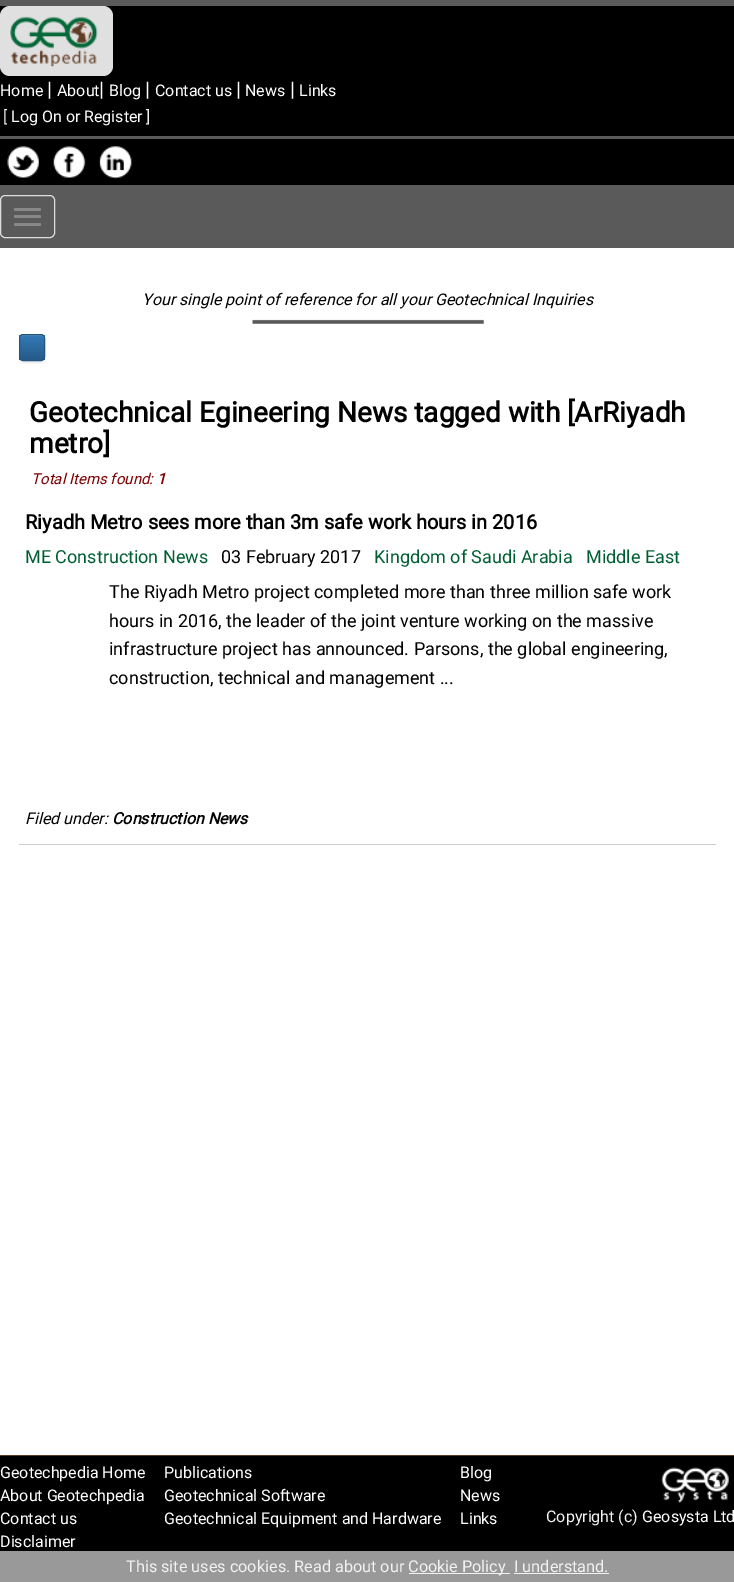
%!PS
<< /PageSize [734 1582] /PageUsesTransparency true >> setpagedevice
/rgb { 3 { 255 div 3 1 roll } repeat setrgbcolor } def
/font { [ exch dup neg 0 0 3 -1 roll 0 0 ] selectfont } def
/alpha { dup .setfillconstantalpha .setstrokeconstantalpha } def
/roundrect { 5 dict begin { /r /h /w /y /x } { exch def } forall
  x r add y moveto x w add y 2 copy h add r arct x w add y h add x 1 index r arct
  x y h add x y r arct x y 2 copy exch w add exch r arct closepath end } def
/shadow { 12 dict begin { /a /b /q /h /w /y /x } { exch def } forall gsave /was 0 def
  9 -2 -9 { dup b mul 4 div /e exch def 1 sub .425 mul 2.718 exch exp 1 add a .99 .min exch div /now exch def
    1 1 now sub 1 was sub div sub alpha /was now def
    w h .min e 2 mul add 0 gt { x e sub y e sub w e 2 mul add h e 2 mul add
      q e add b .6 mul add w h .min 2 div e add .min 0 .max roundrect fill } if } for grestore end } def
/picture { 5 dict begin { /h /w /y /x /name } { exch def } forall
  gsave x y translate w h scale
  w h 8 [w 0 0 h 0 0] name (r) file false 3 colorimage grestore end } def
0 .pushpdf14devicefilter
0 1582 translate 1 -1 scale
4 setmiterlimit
255 255 255 rgb
0 0 734 1582 rectfill
0 0 0 rgb
0 6 734 179 rectfill
90 90 90 rgb
0 0 734 6 rectfill
224 224 224 rgb
0 6 113 70 10 roundrect fill
(img/1.rgb) 10 16 88 51 picture
90 90 90 rgb
0 136 734 3 rectfill
(img/2.rgb) 7 146 32 32 picture
(img/3.rgb) 53 146 33 32 picture
(img/4.rgb) 98 146 34 33 picture
0 185 734 63 rectfill
221 221 221 rgb
0.5 195.5 54 42 4.5 roundrect stroke
136 136 136 rgb
14 208 27 3 1.5 roundrect fill
14 215 27 3 1.5 roundrect fill
14 223 27 3 1.5 roundrect fill
(img/5.rgb) 252 319 232 5 picture
0 0 0 rgb
19 335 26 28 4 0.5 0.07 shadow
gsave
19 334 26 27 4 roundrect clip newpath
gsave 19 335 moveto 45 335 lineto 45 360 lineto 19 360 lineto closepath clip newpath
<< /ShadingType 2 /ColorSpace /DeviceRGB /Coords [32 335 32 360] /Extend [true true] /Function << /FunctionType 2 /Domain [0 1] /C0 [0.2 0.478 0.718] /C1 [0.149 0.353 0.533] /N 1 >> >> shfill grestore
grestore
82 141 193 rgb
22 336 moveto 41 336 lineto 43 336 44 337 44 339 curveto 44 334.5 42.5 335 38.5 335 curveto 25.5 335 lineto 21.5 335 20 334.5 20 339 curveto 20 337 21 336 22 336 curveto closepath fill
36 85 128 rgb
19.5 334.5 25 26 3.5 roundrect stroke
[
  [19 844 697 1 204 204 204]
  [0 1456 734 95 0 0 0]
  [0 1455 734 1 97 60 36]
] { aload pop rgb rectfill } forall
(img/6.rgb) 661 1467 68 36 picture
[
  [0 1551 734 31 153 153 153]
  [409 1573 101 1 242 242 242]
  [514 1573 95 1 242 242 242]
] { aload pop rgb rectfill } forall
/Roboto-Regular 16 font
255 255 255 rgb
0 96 moveto (Home) show
/Roboto-Regular 20 font
47 96 moveto (|) show
/Roboto-Regular 16 font
57 96 moveto (About) show
/Roboto-Regular 20 font
99 96 moveto (|) show
/Roboto-Regular 16 font
109 96 moveto (Blog) show
/Roboto-Regular 20 font
145 96 moveto (|) show
/Roboto-Regular 16 font
155 96 moveto (Contact us) show
/Roboto-Regular 20 font
236 96 moveto (|) show
/Roboto-Regular 16 font
245 96 moveto (News) show
/Roboto-Regular 20 font
290 96 moveto (|) show
/Roboto-Regular 16 font
299 96 moveto (Links) show
242 242 242 rgb
3 122 moveto ([) show
255 255 255 rgb
11 122 moveto (Log On or Register) show
242 242 242 rgb
146 122 moveto (]) show
/Roboto-Italic 16 font
0 0 0 rgb
142 305 moveto (Your single point of reference for all your Geotechnical Inquiries) show
/Roboto-Bold 28 font
29 422 moveto (Geotechnical Egineering News tagged with [ArRiyadh) show
29 453 moveto (metro]) show
/Roboto-Italic 15 font
128 0 0 rgb
31 484 moveto (Total Items found:) show
/Roboto-BoldItalic 15 font
157 484 moveto (1) show
/Roboto-Bold 20 font
0 0 0 rgb
25 529 moveto (Riyadh Metro sees more than 3m safe work hours in 2016) show
/Roboto-Regular 18 font
0 95 50 rgb
25 563 moveto (ME Construction News) show
0 0 0 rgb
221 563 moveto (03 February 2017) show
0 95 50 rgb
374 563 moveto (Kingdom of Saudi Arabia) show
586 563 moveto (Middle East) show
0 0 0 rgb
[
  [(The Riyadh Metro project completed more than three million safe work) 109 598]
  [(hours in 2016, the leader of the joint venture working on the massive) 109 627]
  [(infrastructure project has announced. Parsons, the global engineering,) 109 655]
  [(construction, technical and management ...) 109 684]
] { aload pop moveto show } forall
/Roboto-Italic 16 font
25 824 moveto (Filed under:) show
/Roboto-BoldItalic 16 font
112 824 moveto (Construction News) show
/Roboto-Regular 16 font
255 255 255 rgb
[
  [(Geotechpedia Home) 0 1478]
  [(About Geotechpedia) 0 1501]
  [(Contact us) 0 1524]
  [(Disclaimer) 0 1547]
  [(Publications) 164 1478]
  [(Geotechnical Software) 164 1501]
  [(Geotechnical Equipment and Hardware) 164 1524]
  [(Blog) 460 1478]
  [(News) 460 1501]
  [(Links) 460 1524]
] { aload pop moveto show } forall
242 242 242 rgb
546 1522 moveto (Copyright \(c\)) show
255 255 255 rgb
642 1522 moveto (Geosysta Ltd) show
/Roboto-Regular 16.25 font
242 242 242 rgb
[
  [(This site uses cookies. Read about our) 126 1572]
  [(Cookie Policy) 408 1572]
  [(I understand.) 514 1572]
] { aload pop moveto show } forall
.poppdf14devicefilter showpage
